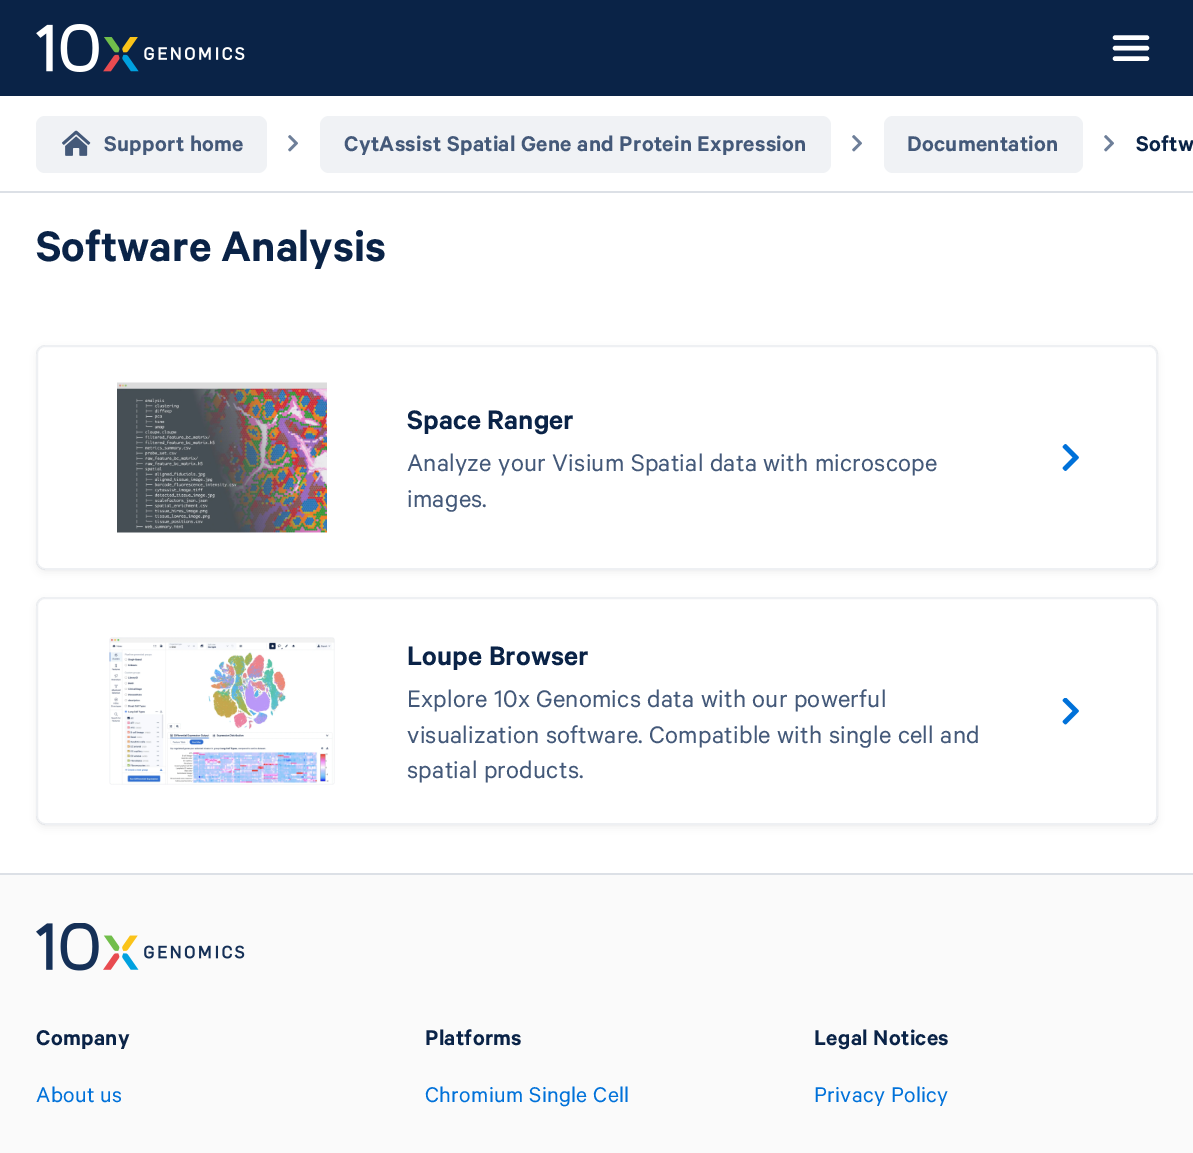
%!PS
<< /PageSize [1193 1153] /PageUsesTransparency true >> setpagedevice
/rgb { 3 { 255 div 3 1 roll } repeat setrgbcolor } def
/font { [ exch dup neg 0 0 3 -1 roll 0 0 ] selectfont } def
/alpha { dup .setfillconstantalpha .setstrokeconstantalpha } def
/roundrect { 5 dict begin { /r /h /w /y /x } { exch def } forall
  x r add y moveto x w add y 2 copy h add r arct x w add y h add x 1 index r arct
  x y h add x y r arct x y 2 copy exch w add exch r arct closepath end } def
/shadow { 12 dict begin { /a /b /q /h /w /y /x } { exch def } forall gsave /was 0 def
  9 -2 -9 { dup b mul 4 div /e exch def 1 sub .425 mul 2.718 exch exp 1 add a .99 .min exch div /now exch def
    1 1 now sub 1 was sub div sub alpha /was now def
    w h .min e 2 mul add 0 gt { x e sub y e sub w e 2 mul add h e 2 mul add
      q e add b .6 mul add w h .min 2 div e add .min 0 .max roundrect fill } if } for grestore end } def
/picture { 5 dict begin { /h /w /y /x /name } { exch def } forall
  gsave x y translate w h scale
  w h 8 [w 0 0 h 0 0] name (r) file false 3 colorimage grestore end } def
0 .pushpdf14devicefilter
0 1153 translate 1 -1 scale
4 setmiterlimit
255 255 255 rgb
0 0 1193 1153 rectfill
10 35 71 rgb
0 0 1193 96 rectfill
(img/1.rgb) 36 24 209 48 picture
255 255 255 rgb
4.4 setlinewidth
1 setlinecap
1115 48 moveto 1147 48 lineto 1115 37.5 moveto 1147 37.5 lineto 1115 58.5 moveto 1147 58.5 lineto stroke
220 224 230 rgb
0 191 1193 2 rectfill
240 242 245 rgb
36 116 231 57 9 roundrect fill
(img/2.rgb) 62 130 29 26 picture
(img/3.rgb) 288 135 10 17 picture
320 116 511 57 9 roundrect fill
(img/3.rgb) 852 135 10 17 picture
884 116 199 57 9 roundrect fill
(img/3.rgb) 1104 135 10 17 picture
gsave
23 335 moveto 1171 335 lineto 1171 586 lineto 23 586 lineto closepath 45 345 moveto 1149 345 lineto 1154 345 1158 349 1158 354 curveto 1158 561 lineto 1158 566 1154 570 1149 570 curveto 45 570 lineto 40 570 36 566 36 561 curveto 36 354 lineto 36 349 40 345 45 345 curveto closepath eoclip newpath
0 0 0 rgb
36 348 1122 225 9 4 0.06 shadow
grestore
0.09 alpha
68 89 121 rgb
2 setlinewidth
0 setlinecap
37 346 1120 223 8 roundrect stroke
1 alpha
(img/4.rgb) 117 382 210 151 picture
(img/5.rgb) 1062 444 17 27 picture
gsave
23 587 moveto 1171 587 lineto 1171 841 lineto 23 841 lineto closepath 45 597 moveto 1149 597 lineto 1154 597 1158 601 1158 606 curveto 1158 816 lineto 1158 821 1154 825 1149 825 curveto 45 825 lineto 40 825 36 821 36 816 curveto 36 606 lineto 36 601 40 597 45 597 curveto closepath eoclip newpath
0 0 0 rgb
36 600 1122 228 9 4 0.06 shadow
grestore
0.09 alpha
37 598 1120 226 8 roundrect stroke
1 alpha
(img/6.rgb) 109 637 226 148 picture
(img/7.rgb) 1062 698 17 27 picture
250 250 250 rgb
0 875 1193 278 rectfill
220 224 230 rgb
0 873 1193 2 rectfill
(img/8.rgb) 36 923 209 48 picture
/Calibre-SemiBold 24 font
68 89 121 rgb
104 151 moveto 0.3 0 (Support home) ashow
344 151 moveto 0.3 0 (CytAssist Spatial Gene and Protein Expression) ashow
907 151 moveto 0.3 0 (Documentation) ashow
10 35 71 rgb
1136 151 moveto 0.3 0 (Softw) ashow
/Calibre-SemiBold 48 font
36 261 moveto (Software Analysis) show
/Calibre-SemiBold 30 font
407 429 moveto 0.1 0 (Space Ranger) ashow
/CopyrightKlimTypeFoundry-Regular 27 font
68 89 121 rgb
407 471 moveto 0.22 0 (Analyze your Visium Spatial data with microscope) ashow
407 507 moveto 0.22 0 (images.) ashow
/Calibre-SemiBold 30 font
10 35 71 rgb
407 665 moveto 0.1 0 (Loupe Browser) ashow
/CopyrightKlimTypeFoundry-Regular 27 font
68 89 121 rgb
407 707 moveto 0.22 0 (Explore 10x Genomics data with our powerful) ashow
407 743 moveto 0.22 0 (visualization software. Compatible with single cell and) ashow
407 778 moveto 0.22 0 (spatial products.) ashow
/Calibre-SemiBold 24 font
10 35 71 rgb
36 1045 moveto 0.3 0 (Company) ashow
/CopyrightKlimTypeFoundry-Regular 24 font
0 113 217 rgb
36 1102 moveto 0.3 0 (About us) ashow
/Calibre-SemiBold 24 font
10 35 71 rgb
425 1045 moveto 0.3 0 (Platforms) ashow
/CopyrightKlimTypeFoundry-Regular 24 font
0 113 217 rgb
425 1102 moveto 0.3 0 (Chromium Single Cell) ashow
/Calibre-SemiBold 24 font
10 35 71 rgb
814 1045 moveto 0.3 0 (Legal Notices) ashow
/CopyrightKlimTypeFoundry-Regular 24 font
0 113 217 rgb
814 1102 moveto 0.3 0 (Privacy Policy) ashow
.poppdf14devicefilter showpage
